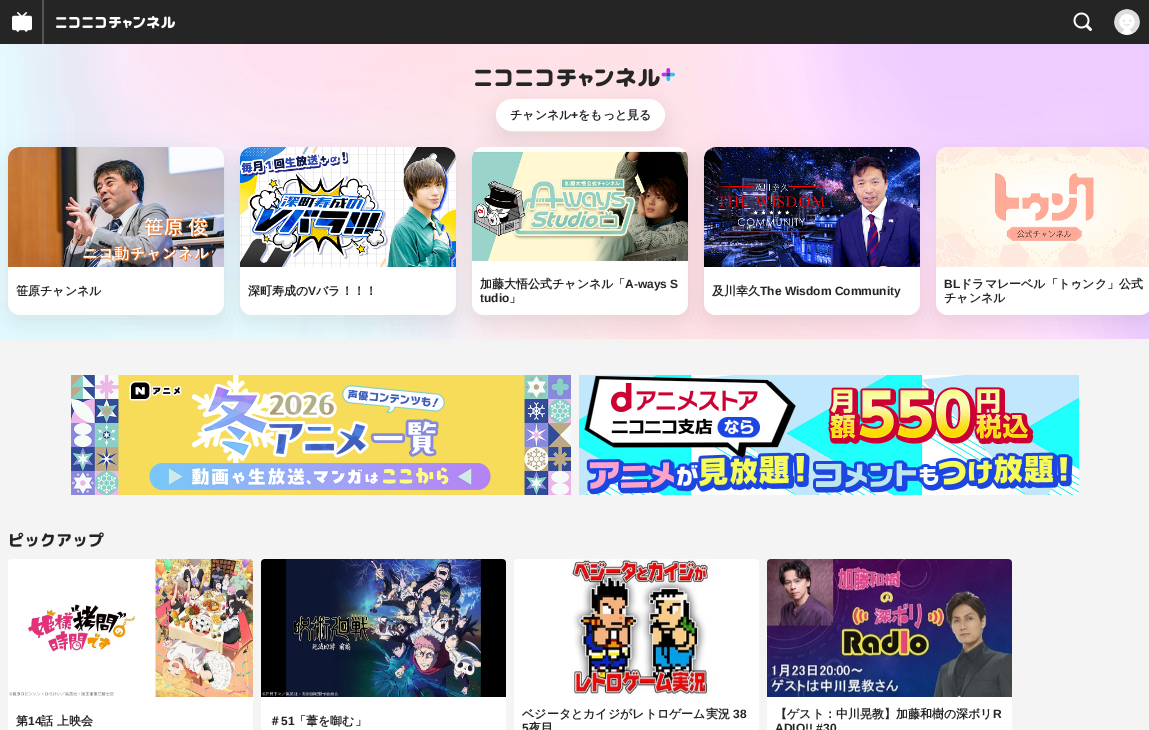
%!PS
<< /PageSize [1149 730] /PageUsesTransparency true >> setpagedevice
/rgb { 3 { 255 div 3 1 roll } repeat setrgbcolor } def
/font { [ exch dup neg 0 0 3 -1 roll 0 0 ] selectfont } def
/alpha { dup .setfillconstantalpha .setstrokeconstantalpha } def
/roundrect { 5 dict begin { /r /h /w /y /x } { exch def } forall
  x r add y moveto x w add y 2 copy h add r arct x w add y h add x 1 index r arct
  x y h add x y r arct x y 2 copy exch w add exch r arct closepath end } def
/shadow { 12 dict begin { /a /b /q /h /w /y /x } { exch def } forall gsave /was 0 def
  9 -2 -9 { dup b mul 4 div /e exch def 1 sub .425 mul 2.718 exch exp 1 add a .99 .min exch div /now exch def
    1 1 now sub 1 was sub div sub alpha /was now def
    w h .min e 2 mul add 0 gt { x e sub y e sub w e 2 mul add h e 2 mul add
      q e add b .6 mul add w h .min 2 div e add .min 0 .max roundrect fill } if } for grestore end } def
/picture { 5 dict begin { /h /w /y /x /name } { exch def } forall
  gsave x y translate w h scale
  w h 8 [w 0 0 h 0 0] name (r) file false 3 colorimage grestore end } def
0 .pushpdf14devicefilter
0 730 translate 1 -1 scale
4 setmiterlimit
244 244 244 rgb
0 0 1149 730 rectfill
37 37 37 rgb
0 0 1149 44 rectfill
(img/1.rgb) 12 12 20 20 picture
85 85 85 rgb
42 0 2 44 rectfill
(img/2.rgb) 56 16 119 13 picture
(img/3.rgb) 1073 12 19 19 picture
(img/4.rgb) 1114 9 26 26 picture
(img/5.rgb) 0 44 1149 295 picture
(img/6.rgb) 475 68 200 19 picture
0 0 0 rgb
496 107 169 32 16 10 0.08 shadow
255 255 255 rgb
497 100 167 30 15 roundrect gsave fill grestore
2 setlinewidth
stroke
0 0 0 rgb
8 155 216 168 12 10 0.08 shadow
255 255 255 rgb
8 147 216 168 12 roundrect fill
(img/7.rgb) 8 147 216 120 picture
0 0 0 rgb
240 155 216 168 12 10 0.08 shadow
255 255 255 rgb
240 147 216 168 12 roundrect fill
(img/8.rgb) 240 147 216 120 picture
0 0 0 rgb
472 155 216 168 12 10 0.08 shadow
255 255 255 rgb
472 147 216 168 12 roundrect fill
(img/9.rgb) 472 147 216 115 picture
0 0 0 rgb
704 155 216 168 12 10 0.08 shadow
255 255 255 rgb
704 147 216 168 12 roundrect fill
(img/10.rgb) 704 147 216 120 picture
0 0 0 rgb
936 155 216 168 12 10 0.08 shadow
255 255 255 rgb
936 147 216 168 12 roundrect fill
(img/11.rgb) 936 147 213 120 picture
(img/12.rgb) 71 375 500 120 picture
(img/13.rgb) 579 375 500 120 picture
8 559 245 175 4 roundrect fill
(img/14.rgb) 9 559 244 138 picture
261 559 245 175 4 roundrect fill
(img/15.rgb) 261 559 245 138 picture
514 559 245 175 4 roundrect fill
(img/16.rgb) 570 559 145 138 picture
767 559 245 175 4 roundrect fill
(img/17.rgb) 767 559 245 138 picture
/WenQuanYiZenHei-Bold 12 font
37 37 37 rgb
510 119 moveto (チャンネル) show
/LiberationSans-Bold 12 font
571 119 moveto (+) show
/WenQuanYiZenHei-Bold 12 font
[
  [(をもっと見る) 578 119]
  [(笹原チャンネル) 16 295]
  [(深町寿成の) 248 295]
] { aload pop moveto show } forall
/LiberationSans-Bold 12 font
308 295 moveto (V) show
/WenQuanYiZenHei-Bold 12 font
316 295 moveto (バラ！！！) show
480 288 moveto (加藤大悟公式チャンネル「) show
/LiberationSans-Bold 12 font
625 288 moveto (A-ways S) show
480 302 moveto (tudio) show
/WenQuanYiZenHei-Bold 12 font
509 302 moveto (」) show
712 295 moveto (及川幸久) show
/LiberationSans-Bold 12 font
760 295 moveto (The Wisdom Community) show
944 288 moveto (BL) show
/WenQuanYiZenHei-Bold 12 font
960 288 moveto (ドラマレーベル「トゥンク」公式) show
944 302 moveto (チャンネル) show
/RoundedMplus1c-ExtraBold 16 font
8 546 moveto (ピックアップ) show
/WenQuanYiZenHei-Bold 12 font
16 725 moveto (第) show
/LiberationSans-Bold 12 font
28 725 moveto (14) show
/WenQuanYiZenHei-Bold 12 font
41 725 moveto (話 上映会) show
269 725 moveto (＃) show
/LiberationSans-Bold 12 font
281 725 moveto (51) show
/WenQuanYiZenHei-Bold 12 font
294 725 moveto (「葦を啣む」) show
522 718 moveto (ベジータとカイジがレトロゲーム実況) show
/LiberationSans-Bold 12 font
733 718 moveto (38) show
522 732 moveto (5) show
/WenQuanYiZenHei-Bold 12 font
529 732 moveto (夜目) show
775 718 moveto (【ゲスト：中川晃教】加藤和樹の深ボリ) show
/LiberationSans-Bold 12 font
993 718 moveto (R) show
775 732 moveto (ADIO!! #30) show
.poppdf14devicefilter showpage
